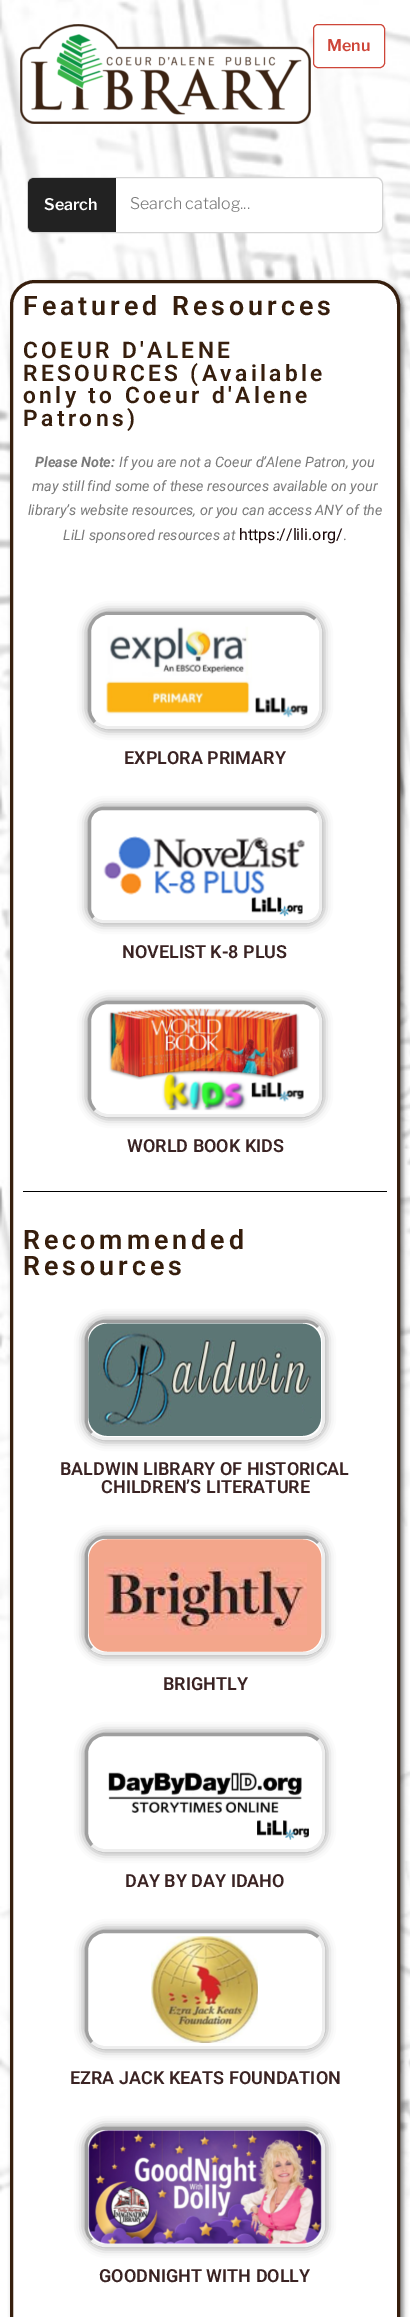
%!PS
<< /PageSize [410 2317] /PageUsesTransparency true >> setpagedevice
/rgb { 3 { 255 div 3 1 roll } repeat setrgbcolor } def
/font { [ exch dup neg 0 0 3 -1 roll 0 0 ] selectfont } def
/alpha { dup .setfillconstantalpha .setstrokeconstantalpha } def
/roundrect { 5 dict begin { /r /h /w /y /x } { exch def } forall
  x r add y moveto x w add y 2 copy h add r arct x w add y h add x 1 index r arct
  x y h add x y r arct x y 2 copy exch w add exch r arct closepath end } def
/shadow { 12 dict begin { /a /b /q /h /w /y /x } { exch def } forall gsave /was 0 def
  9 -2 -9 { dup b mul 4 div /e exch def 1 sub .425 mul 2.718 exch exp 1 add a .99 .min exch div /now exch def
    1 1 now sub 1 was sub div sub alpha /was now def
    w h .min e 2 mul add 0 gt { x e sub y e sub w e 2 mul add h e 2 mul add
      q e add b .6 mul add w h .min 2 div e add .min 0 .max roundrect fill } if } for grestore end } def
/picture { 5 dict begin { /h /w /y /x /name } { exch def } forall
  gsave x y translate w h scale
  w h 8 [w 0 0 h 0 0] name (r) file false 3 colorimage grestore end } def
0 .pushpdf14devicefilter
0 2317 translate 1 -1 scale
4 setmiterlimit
255 255 255 rgb
0 0 410 2317 rectfill
(img/1.rgb) 0 0 410 2317 picture
(img/2.rgb) 20 24 291 100 picture
313.5 24.5 71 43 4.5 roundrect gsave fill grestore
206 70 57 rgb
stroke
255 255 255 rgb
27.5 177.5 355 55 6.5 roundrect gsave fill grestore
212 212 212 rgb
stroke
34 34 34 rgb
34 178 moveto 116 178 lineto 116 232 lineto 34 232 lineto 30.5 232 28 229.5 28 226 curveto 28 184 lineto 28 180.5 30.5 178 34 178 curveto closepath fill
0 0 0 rgb
13 283 390 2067 25 2.5 0.5 shadow
255 255 255 rgb
11.5 281.5 387 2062 23.5 roundrect gsave fill grestore
54 30 13 rgb
3 setlinewidth
stroke
gsave
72 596 moveto 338 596 lineto 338 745 lineto 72 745 lineto closepath 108 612 moveto 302 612 lineto 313 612 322 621 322 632 curveto 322 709 lineto 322 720 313 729 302 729 curveto 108 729 lineto 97 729 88 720 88 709 curveto 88 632 lineto 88 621 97 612 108 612 curveto closepath eoclip newpath
0 0 0 rgb
88 612 234 117 20 5 0.5 shadow
grestore
238 238 238 rgb
315 619 moveto 318.5 622.5 320.5 627 320.5 632 curveto 320.5 709 lineto 320.5 714 318.5 718.5 315 722 curveto 311.5 725.5 307 727.5 302 727.5 curveto 108 727.5 lineto 103 727.5 98.5 725.5 95 722 curveto stroke
159 159 159 rgb
95 722 moveto 91.5 718.5 89.5 714 89.5 709 curveto 89.5 632 lineto 89.5 627 91.5 622.5 95 619 curveto 98.5 615.5 103 613.5 108 613.5 curveto 302 613.5 lineto 307 613.5 311.5 615.5 315 619 curveto stroke
(img/3.rgb) 105 615 203 103 picture
gsave
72 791 moveto 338 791 lineto 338 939 lineto 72 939 lineto closepath 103 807 moveto 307 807 lineto 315.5 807 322 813.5 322 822 curveto 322 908 lineto 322 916.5 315.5 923 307 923 curveto 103 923 lineto 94.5 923 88 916.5 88 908 curveto 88 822 lineto 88 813.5 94.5 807 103 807 curveto closepath eoclip newpath
0 0 0 rgb
88 807 234 116 15 5 0.5 shadow
grestore
238 238 238 rgb
316.5 812.5 moveto 319 815 320.5 818.5 320.5 822 curveto 320.5 908 lineto 320.5 911.5 319 915 316.5 917.5 curveto 314 920 310.5 921.5 307 921.5 curveto 103 921.5 lineto 99.5 921.5 96 920 93.5 917.5 curveto stroke
159 159 159 rgb
93.5 917.5 moveto 91 915 89.5 911.5 89.5 908 curveto 89.5 822 lineto 89.5 818.5 91 815 93.5 812.5 curveto 96 810 99.5 808.5 103 808.5 curveto 307 808.5 lineto 310.5 808.5 314 810 316.5 812.5 curveto stroke
(img/4.rgb) 103 836 202 81 picture
gsave
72 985 moveto 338 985 lineto 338 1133 lineto 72 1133 lineto closepath 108 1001 moveto 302 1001 lineto 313 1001 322 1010 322 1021 curveto 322 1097 lineto 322 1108 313 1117 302 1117 curveto 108 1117 lineto 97 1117 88 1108 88 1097 curveto 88 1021 lineto 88 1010 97 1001 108 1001 curveto closepath eoclip newpath
0 0 0 rgb
88 1001 234 116 20 5 0.5 shadow
grestore
238 238 238 rgb
315 1008 moveto 318.5 1011.5 320.5 1016 320.5 1021 curveto 320.5 1097 lineto 320.5 1102 318.5 1106.5 315 1110 curveto 311.5 1113.5 307 1115.5 302 1115.5 curveto 108 1115.5 lineto 103 1115.5 98.5 1113.5 95 1110 curveto stroke
159 159 159 rgb
95 1110 moveto 91.5 1106.5 89.5 1102 89.5 1097 curveto 89.5 1021 lineto 89.5 1016 91.5 1011.5 95 1008 curveto 98.5 1004.5 103 1002.5 108 1002.5 curveto 302 1002.5 lineto 307 1002.5 311.5 1004.5 315 1008 curveto stroke
(img/5.rgb) 108 1008 196 103 picture
0 0 0 rgb
23 1191 364 1 rectfill
gsave
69 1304 moveto 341 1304 lineto 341 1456 lineto 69 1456 lineto closepath 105 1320 moveto 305 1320 lineto 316 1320 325 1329 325 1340 curveto 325 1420 lineto 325 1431 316 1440 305 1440 curveto 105 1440 lineto 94 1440 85 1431 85 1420 curveto 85 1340 lineto 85 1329 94 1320 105 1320 curveto closepath eoclip newpath
85 1320 240 120 20 5 0.5 shadow
grestore
238 238 238 rgb
318 1327 moveto 321.5 1330.5 323.5 1335 323.5 1340 curveto 323.5 1420 lineto 323.5 1425 321.5 1429.5 318 1433 curveto 314.5 1436.5 310 1438.5 305 1438.5 curveto 105 1438.5 lineto 100 1438.5 95.5 1436.5 92 1433 curveto stroke
159 159 159 rgb
92 1433 moveto 88.5 1429.5 86.5 1425 86.5 1420 curveto 86.5 1340 lineto 86.5 1335 88.5 1330.5 92 1327 curveto 95.5 1323.5 100 1321.5 105 1321.5 curveto 305 1321.5 lineto 310 1321.5 314.5 1323.5 318 1327 curveto stroke
(img/6.rgb) 88 1323 233 113 picture
0 0 0 rgb
85 1536 240 119 20 5 0.5 shadow
238 238 238 rgb
318 1543 moveto 321.5 1546.5 323.5 1551 323.5 1556 curveto 323.5 1635 lineto 323.5 1640 321.5 1644.5 318 1648 curveto 314.5 1651.5 310 1653.5 305 1653.5 curveto 105 1653.5 lineto 100 1653.5 95.5 1651.5 92 1648 curveto stroke
159 159 159 rgb
92 1648 moveto 88.5 1644.5 86.5 1640 86.5 1635 curveto 86.5 1556 lineto 86.5 1551 88.5 1546.5 92 1543 curveto 95.5 1539.5 100 1537.5 105 1537.5 curveto 305 1537.5 lineto 310 1537.5 314.5 1539.5 318 1543 curveto stroke
(img/7.rgb) 88 1539 234 113 picture
gsave
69 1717 moveto 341 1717 lineto 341 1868 lineto 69 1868 lineto closepath 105 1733 moveto 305 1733 lineto 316 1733 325 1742 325 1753 curveto 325 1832 lineto 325 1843 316 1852 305 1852 curveto 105 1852 lineto 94 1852 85 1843 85 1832 curveto 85 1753 lineto 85 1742 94 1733 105 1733 curveto closepath eoclip newpath
0 0 0 rgb
85 1733 240 119 20 5 0.5 shadow
grestore
238 238 238 rgb
318 1740 moveto 321.5 1743.5 323.5 1748 323.5 1753 curveto 323.5 1832 lineto 323.5 1837 321.5 1841.5 318 1845 curveto 314.5 1848.5 310 1850.5 305 1850.5 curveto 105 1850.5 lineto 100 1850.5 95.5 1848.5 92 1845 curveto stroke
159 159 159 rgb
92 1845 moveto 88.5 1841.5 86.5 1837 86.5 1832 curveto 86.5 1753 lineto 86.5 1748 88.5 1743.5 92 1740 curveto 95.5 1736.5 100 1734.5 105 1734.5 curveto 305 1734.5 lineto 310 1734.5 314.5 1736.5 318 1740 curveto stroke
(img/8.rgb) 108 1772 201 68 picture
gsave
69 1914 moveto 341 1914 lineto 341 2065 lineto 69 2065 lineto closepath 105 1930 moveto 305 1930 lineto 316 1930 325 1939 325 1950 curveto 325 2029 lineto 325 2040 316 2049 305 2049 curveto 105 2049 lineto 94 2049 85 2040 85 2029 curveto 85 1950 lineto 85 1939 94 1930 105 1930 curveto closepath eoclip newpath
0 0 0 rgb
85 1930 240 119 20 5 0.5 shadow
grestore
238 238 238 rgb
318 1937 moveto 321.5 1940.5 323.5 1945 323.5 1950 curveto 323.5 2029 lineto 323.5 2034 321.5 2038.5 318 2042 curveto 314.5 2045.5 310 2047.5 305 2047.5 curveto 105 2047.5 lineto 100 2047.5 95.5 2045.5 92 2042 curveto stroke
159 159 159 rgb
92 2042 moveto 88.5 2038.5 86.5 2034 86.5 2029 curveto 86.5 1950 lineto 86.5 1945 88.5 1940.5 92 1937 curveto 95.5 1933.5 100 1931.5 105 1931.5 curveto 305 1931.5 lineto 310 1931.5 314.5 1933.5 318 1937 curveto stroke
(img/9.rgb) 151 1936 107 107 picture
gsave
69 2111 moveto 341 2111 lineto 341 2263 lineto 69 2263 lineto closepath 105 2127 moveto 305 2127 lineto 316 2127 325 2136 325 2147 curveto 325 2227 lineto 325 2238 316 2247 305 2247 curveto 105 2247 lineto 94 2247 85 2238 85 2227 curveto 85 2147 lineto 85 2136 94 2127 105 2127 curveto closepath eoclip newpath
0 0 0 rgb
85 2127 240 120 20 5 0.5 shadow
grestore
238 238 238 rgb
318 2134 moveto 321.5 2137.5 323.5 2142 323.5 2147 curveto 323.5 2227 lineto 323.5 2232 321.5 2236.5 318 2240 curveto 314.5 2243.5 310 2245.5 305 2245.5 curveto 105 2245.5 lineto 100 2245.5 95.5 2243.5 92 2240 curveto stroke
159 159 159 rgb
92 2240 moveto 88.5 2236.5 86.5 2232 86.5 2227 curveto 86.5 2147 lineto 86.5 2142 88.5 2137.5 92 2134 curveto 95.5 2130.5 100 2128.5 105 2128.5 curveto 305 2128.5 lineto 310 2128.5 314.5 2130.5 318 2134 curveto stroke
(img/10.rgb) 88 2130 234 114 picture
/LibreFranklin-SemiBold 16 font
206 70 57 rgb
327 51 moveto (Menu) show
255 255 255 rgb
44 210 moveto (Search) show
/LibreFranklin-Light 16 font
122 122 122 rgb
130 209 moveto (Search catalog...) show
/Roboto-SemiBold 26.75 font
54 30 13 rgb
23 315 moveto 4 0 (Featured Resources) ashow
/Roboto-SemiBold 22.75 font
23 358 moveto 3.4 0 (COEUR D'ALENE) ashow
23 381 moveto 3.4 0 (RESOURCES \(Available) ashow
23 403 moveto 3.4 0 (only to Coeur d'Alene) ashow
23 426 moveto 3.4 0 (Patrons\)) ashow
/Roboto-BoldItalic 14.4 font
122 122 122 rgb
35 467 moveto (Please Note:) show
/Roboto-Italic 14.4 font
[
  [(If you are not a Coeur d’Alene Patron, you) 119 467]
  [(may still find some of these resources available on your) 32 491]
  [(library’s website resources, or you can access ANY of the) 28 515]
  [(LiLI sponsored resources at) 63 540]
] { aload pop moveto show } forall
/Roboto-Regular 16 font
26 6 8 rgb
239 540 moveto (https://lili.org/) show
/Roboto-Regular 14.4 font
122 122 122 rgb
343 540 moveto (.) show
/Roboto-SemiBold 18 font
58 35 35 rgb
[
  [(EXPLORA PRIMARY) 124 764]
  [(NOVELIST K-8 PLUS) 122 958]
  [(WORLD BOOK KIDS) 127 1152]
] { aload pop moveto show } forall
/Roboto-SemiBold 26.75 font
54 30 13 rgb
23 1249 moveto 4 0 (Recommended) ashow
23 1275 moveto 4 0 (Resources) ashow
/Roboto-SemiBold 18 font
58 35 35 rgb
[
  [(BALDWIN LIBRARY OF HISTORICAL) 60 1475]
  [(CHILDREN’S LITERATURE) 101 1493]
  [(BRIGHTLY) 163 1690]
  [(DAY BY DAY IDAHO) 125 1887]
  [(EZRA JACK KEATS FOUNDATION) 70 2084]
  [(GOODNIGHT WITH DOLLY) 99 2282]
] { aload pop moveto show } forall
.poppdf14devicefilter showpage
